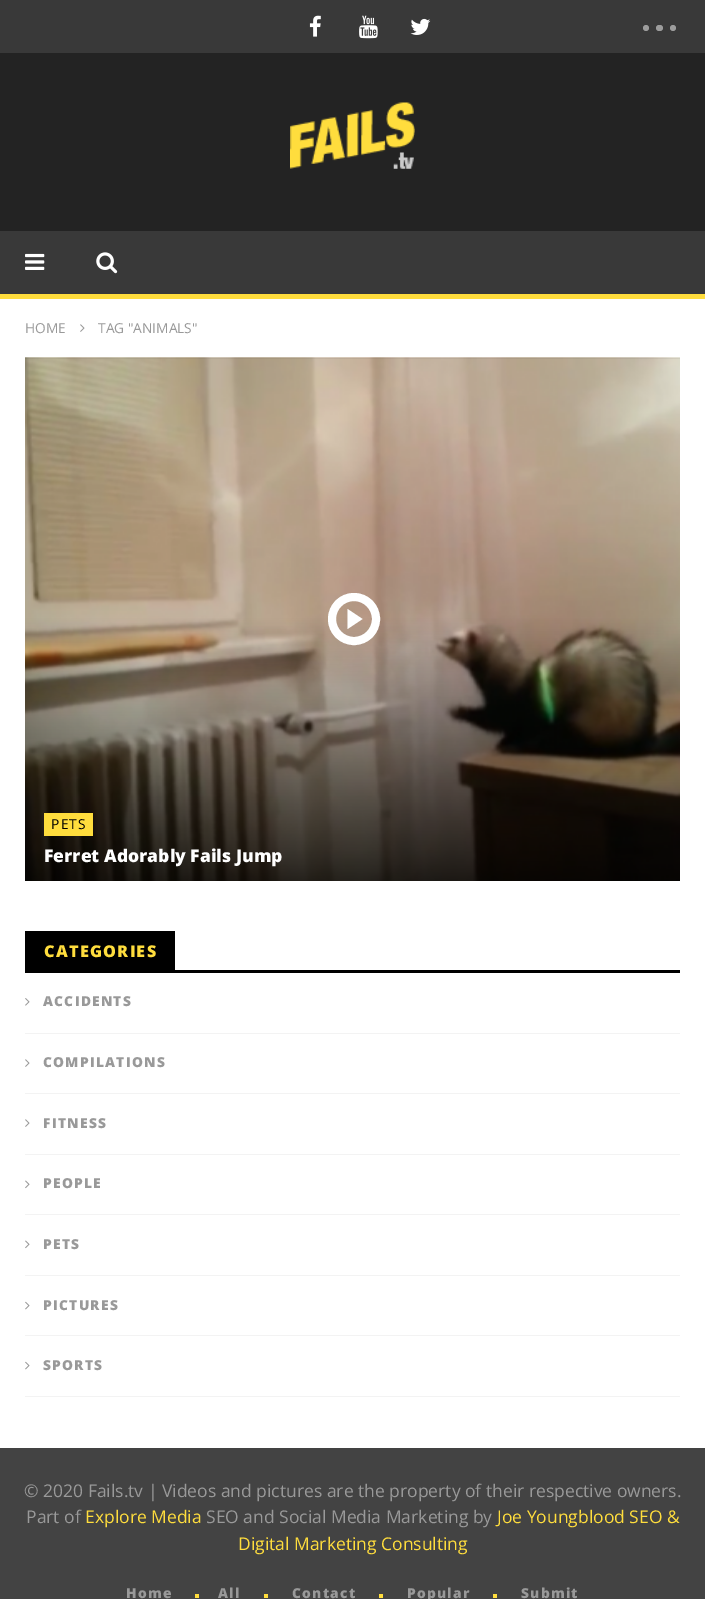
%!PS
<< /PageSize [705 1599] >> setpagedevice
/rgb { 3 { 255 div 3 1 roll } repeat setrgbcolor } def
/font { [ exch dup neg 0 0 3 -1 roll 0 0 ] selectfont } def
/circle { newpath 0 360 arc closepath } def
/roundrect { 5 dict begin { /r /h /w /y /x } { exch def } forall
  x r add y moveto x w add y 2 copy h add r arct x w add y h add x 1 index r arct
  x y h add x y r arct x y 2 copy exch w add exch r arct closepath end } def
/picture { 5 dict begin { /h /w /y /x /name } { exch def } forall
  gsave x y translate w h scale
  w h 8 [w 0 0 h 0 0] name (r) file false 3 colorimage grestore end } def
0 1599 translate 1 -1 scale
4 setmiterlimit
255 255 255 rgb
0 0 705 1599 rectfill
35 35 35 rgb
0 53 705 178 rectfill
57 57 57 rgb
0 0 705 53 rectfill
(img/1.rgb) 309 15 12 22 picture
(img/2.rgb) 359 15 19 24 picture
(img/3.rgb) 410 18 21 17 picture
156 156 156 rgb
646 28 3 circle fill
656 25 7 6 3 roundrect fill
673 28 3 circle fill
(img/4.rgb) 290 102 125 67 picture
57 57 57 rgb
0 231 705 63 rectfill
255 221 61 rgb
0 294 705 5 rectfill
(img/5.rgb) 25 253 20 17 picture
(img/6.rgb) 96 252 22 22 picture
(img/7.rgb) 80 324 5 8 picture
(img/8.rgb) 25 357 655 524 picture
255 255 255 rgb
8 setlinewidth
354 619 22 circle stroke
347.5 629 moveto 347.5 609 lineto 362.5 619 lineto closepath fill
[
  [44 813 49 23 255 221 61]
  [25 931 150 39 0 0 0]
  [25 970 655 3 0 0 0]
  [25 1033 655 1 243 243 243]
] { aload pop rgb rectfill } forall
(img/9.rgb) 25 998 5 8 picture
25 1093 655 1 rectfill
(img/7.rgb) 25 1059 5 8 picture
25 1154 655 1 rectfill
(img/7.rgb) 25 1119 5 8 picture
25 1214 655 1 rectfill
(img/10.rgb) 25 1180 5 9 picture
25 1275 655 1 rectfill
(img/10.rgb) 25 1240 5 9 picture
25 1335 655 1 rectfill
(img/11.rgb) 25 1301 5 9 picture
25 1396 655 1 rectfill
(img/11.rgb) 25 1361 5 9 picture
[
  [0 1448 705 151 67 67 67]
  [195 1594 4 4 255 221 61]
  [264 1594 4 4 255 221 61]
  [379 1594 4 4 255 221 61]
  [493 1594 4 4 255 221 61]
] { aload pop rgb rectfill } forall
/OpenSans-Regular 13.75 font
153 153 153 rgb
25 333 moveto (HOME) show
98 333 moveto (TAG "ANIMALS") show
0 0 0 rgb
51 829 moveto 1.25 0 (PETS) ashow
/OpenSans-ExtraBold 17.5 font
255 255 255 rgb
44 862 moveto (Ferret Adorably Fails Jump) show
/OpenSans-ExtraBold 16.25 font
255 221 61 rgb
44 957 moveto 1.25 0 (CATEGORIES) ashow
/OpenSans-ExtraBold 13.75 font
153 153 153 rgb
43 1006 moveto 1.25 0 (ACCIDENTS) ashow
43 1067 moveto 1.25 0 (COMPILATIONS) ashow
43 1128 moveto 1.25 0 (FITNESS) ashow
43 1188 moveto 1.25 0 (PEOPLE) ashow
43 1249 moveto 1.25 0 (PETS) ashow
43 1310 moveto 1.25 0 (PICTURES) ashow
43 1370 moveto 1.25 0 (SPORTS) ashow
/OpenSans-Regular 17.5 font
24 1497 moveto (© 2020 Fails.tv | Videos and pictures are the property of their respective owners.) show
26 1523 moveto (Part of) show
255 221 61 rgb
85 1523 moveto (Explore Media) show
153 153 153 rgb
206 1523 moveto (SEO and Social Media Marketing by) show
255 221 61 rgb
497 1523 moveto (Joe Youngblood SEO &) show
238 1550 moveto (Digital Marketing Consulting) show
/OpenSans-ExtraBold 13.75 font
153 153 153 rgb
126 1598 moveto 1.25 0 (Home) ashow
218 1598 moveto 1.25 0 (All) ashow
292 1598 moveto 1.25 0 (Contact) ashow
407 1598 moveto 1.25 0 (Popular) ashow
521 1598 moveto 1.25 0 (Submit) ashow
showpage
